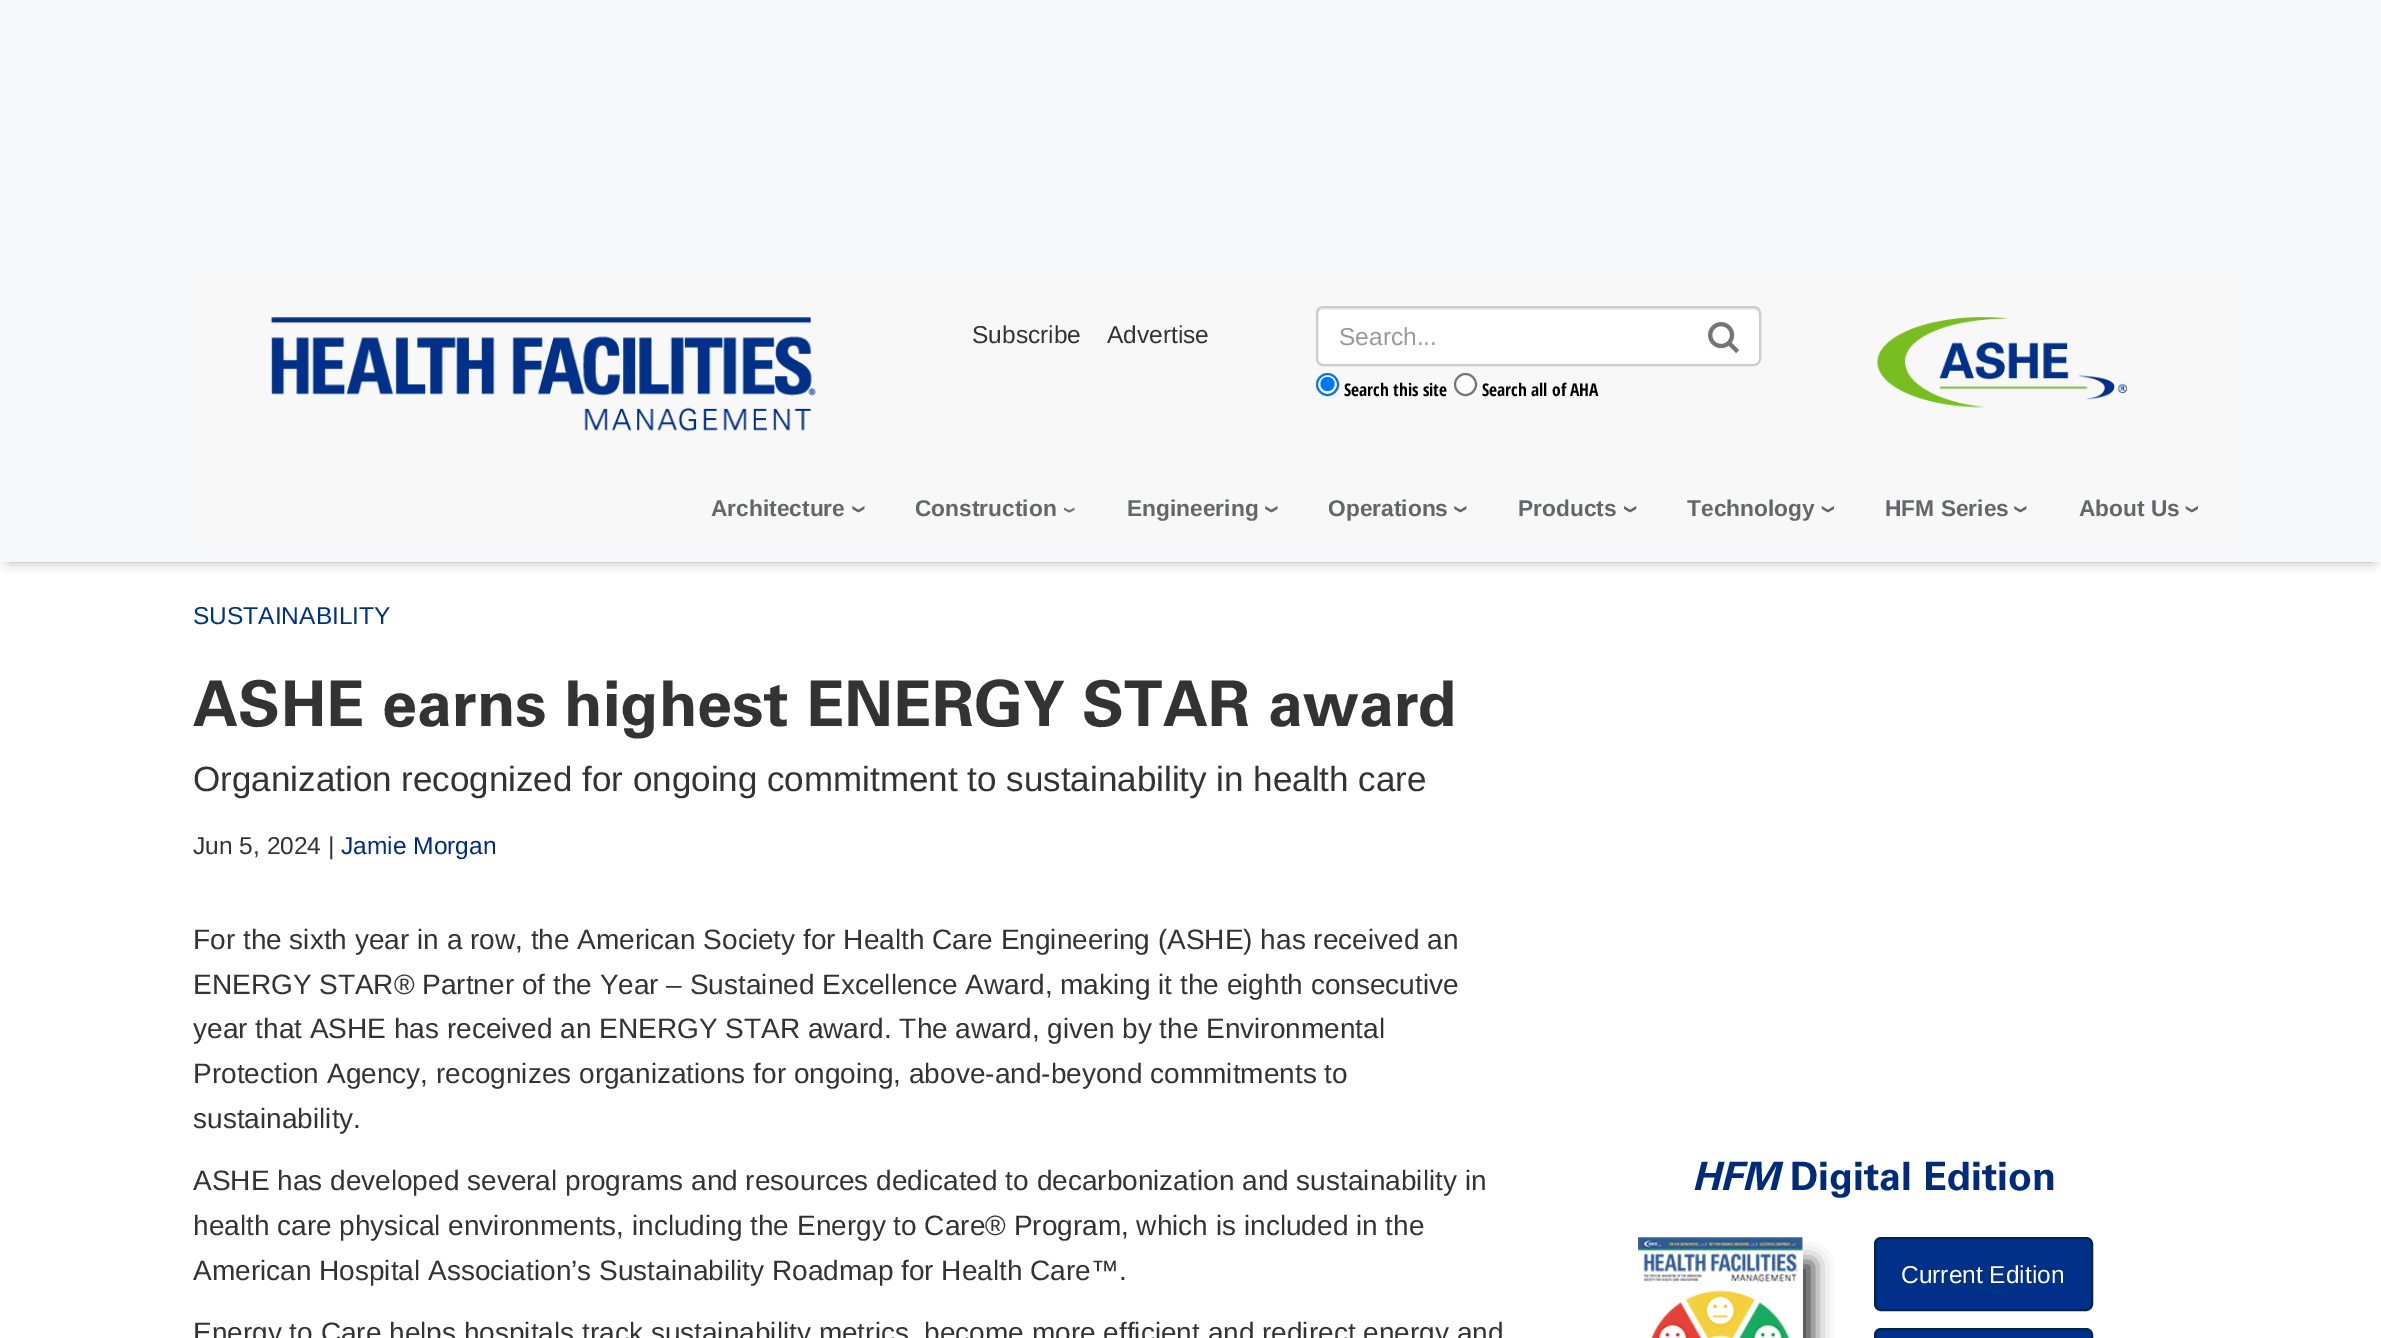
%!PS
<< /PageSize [2381 1338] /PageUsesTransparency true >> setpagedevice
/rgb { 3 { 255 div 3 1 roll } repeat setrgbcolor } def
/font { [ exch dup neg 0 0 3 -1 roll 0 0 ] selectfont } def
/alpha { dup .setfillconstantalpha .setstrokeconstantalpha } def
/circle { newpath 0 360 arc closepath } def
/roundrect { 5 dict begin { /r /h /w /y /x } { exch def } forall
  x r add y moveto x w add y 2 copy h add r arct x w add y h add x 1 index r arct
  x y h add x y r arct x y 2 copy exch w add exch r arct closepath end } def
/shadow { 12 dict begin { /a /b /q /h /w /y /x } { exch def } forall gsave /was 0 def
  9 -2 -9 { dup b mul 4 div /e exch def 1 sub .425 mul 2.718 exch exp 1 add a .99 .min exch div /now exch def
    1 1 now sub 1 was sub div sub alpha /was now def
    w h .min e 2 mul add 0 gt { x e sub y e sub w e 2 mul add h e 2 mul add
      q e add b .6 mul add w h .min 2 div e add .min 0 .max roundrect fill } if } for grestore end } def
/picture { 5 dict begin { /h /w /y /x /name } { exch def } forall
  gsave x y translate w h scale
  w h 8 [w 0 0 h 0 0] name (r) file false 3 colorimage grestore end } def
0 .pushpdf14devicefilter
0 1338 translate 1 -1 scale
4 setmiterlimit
255 255 255 rgb
0 0 2381 1338 rectfill
0 0 0 rgb
9 14 2364 544 0 7 0.6 shadow
247 248 251 rgb
0 0 2381 562 rectfill
248 248 248 rgb
194 271 2048 280 rectfill
(img/1.rgb) 271 317 545 115 picture
255 255 255 rgb
1316 306 445 60 7 roundrect fill
236 236 236 rgb
1323 310 moveto 1754 310 lineto 1756 310 1759 312 1759 315 curveto 1759 312 1758 308 1754 308 curveto 1323 308 lineto 1319 308 1318 312 1318 315 curveto 1318 312 1320 310 1323 310 curveto closepath fill
204 204 204 rgb
2 setlinewidth
1317 307 443 58 6 roundrect stroke
(img/2.rgb) 1708 322 32 32 picture
255 255 255 rgb
1327.5 384.5 10.5 circle gsave fill grestore
0 117 255 rgb
stroke
1327.5 384 7 circle fill
255 255 255 rgb
1465.5 384.5 10.5 circle gsave fill grestore
118 118 118 rgb
stroke
(img/3.rgb) 1877 317 250 91 picture
(img/4.rgb) 852 505 13 8 picture
(img/5.rgb) 1064 507 11 6 picture
(img/4.rgb) 1265 505 13 8 picture
(img/4.rgb) 1454 505 13 8 picture
(img/6.rgb) 1624 505 13 8 picture
(img/7.rgb) 1821 505 13 8 picture
(img/4.rgb) 2014 505 13 8 picture
(img/7.rgb) 2185 505 13 8 picture
0 0 0 rgb
1663 1262 150 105 0 9.5 0.75 shadow
255 255 255 rgb
1642 1241 161 97 rectfill
(img/8.rgb) 1638 1237 165 101 picture
0 48 135 rgb
1875 1238 217 72 6 roundrect gsave fill grestore
0 36 77 rgb
stroke
0 48 135 rgb
1875 1329 217 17 6 roundrect gsave fill grestore
0 36 77 rgb
stroke
/LiberationSans-Regular 24.5 font
51 51 51 rgb
972 343 moveto (Subscribe) show
1107 343 moveto (Advertise) show
153 153 153 rgb
1339 345 moveto (Search...) show
/OpenSansCondensed-Bold 17.5 font
0 0 0 rgb
1344 396 moveto (Search this site) show
1482 396 moveto (Search all of AHA) show
/LiberationSans-Bold 22.75 font
99 102 106 rgb
[
  [(Architecture) 711 516]
  [(Construction) 915 516]
  [(Engineering) 1127 516]
  [(Operations) 1328 516]
  [(Products) 1518 516]
  [(Technology) 1687 516]
  [(HFM Series) 1885 516]
  [(About Us) 2079 516]
] { aload pop moveto show } forall
/LiberationSans-Regular 24.5 font
0 48 135 rgb
193 624 moveto (SUSTAINABILITY) show
/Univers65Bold-Bold 63 font
51 51 51 rgb
193 726 moveto (ASHE earns highest ENERGY STAR award) show
/LiberationSans-Regular 35 font
193 791 moveto (Organization recognized for ongoing commitment to sustainability in health care) show
/LiberationSans-Regular 24.5 font
193 854 moveto (Jun 5, 2024 |) show
0 43 122 rgb
341 854 moveto (Jamie Morgan) show
/LiberationSans-Regular 28 font
51 51 51 rgb
[
  [(For the sixth year in a row, the American Society for Health Care Engineering \(ASHE\) has received an) 193 949]
  [(ENERGY STAR® Partner of the Year – Sustained Excellence Award, making it the eighth consecutive) 193 994]
  [(year that ASHE has received an ENERGY STAR award. The award, given by the Environmental) 193 1038]
  [(Protection Agency, recognizes organizations for ongoing, above-and-beyond commitments to) 193 1083]
  [(sustainability.) 193 1128]
  [(ASHE has developed several programs and resources dedicated to decarbonization and sustainability in) 193 1190]
  [(health care physical environments, including the Energy to Care® Program, which is included in the) 193 1235]
  [(American Hospital Association’s Sustainability Roadmap for Health Care™.) 193 1280]
  [(Energy to Care helps hospitals track sustainability metrics, become more efficient and redirect energy and) 193 1342]
] { aload pop moveto show } forall
/Univers65Bold-BoldItalic 39.25 font
0 43 122 rgb
1692 1190 moveto (HFM) show
/Univers65Bold-Bold 39.25 font
1790 1190 moveto (Digital Edition) show
/LiberationSans-Regular 24.5 font
255 255 255 rgb
1901 1283 moveto (Current Edition) show
.poppdf14devicefilter showpage
